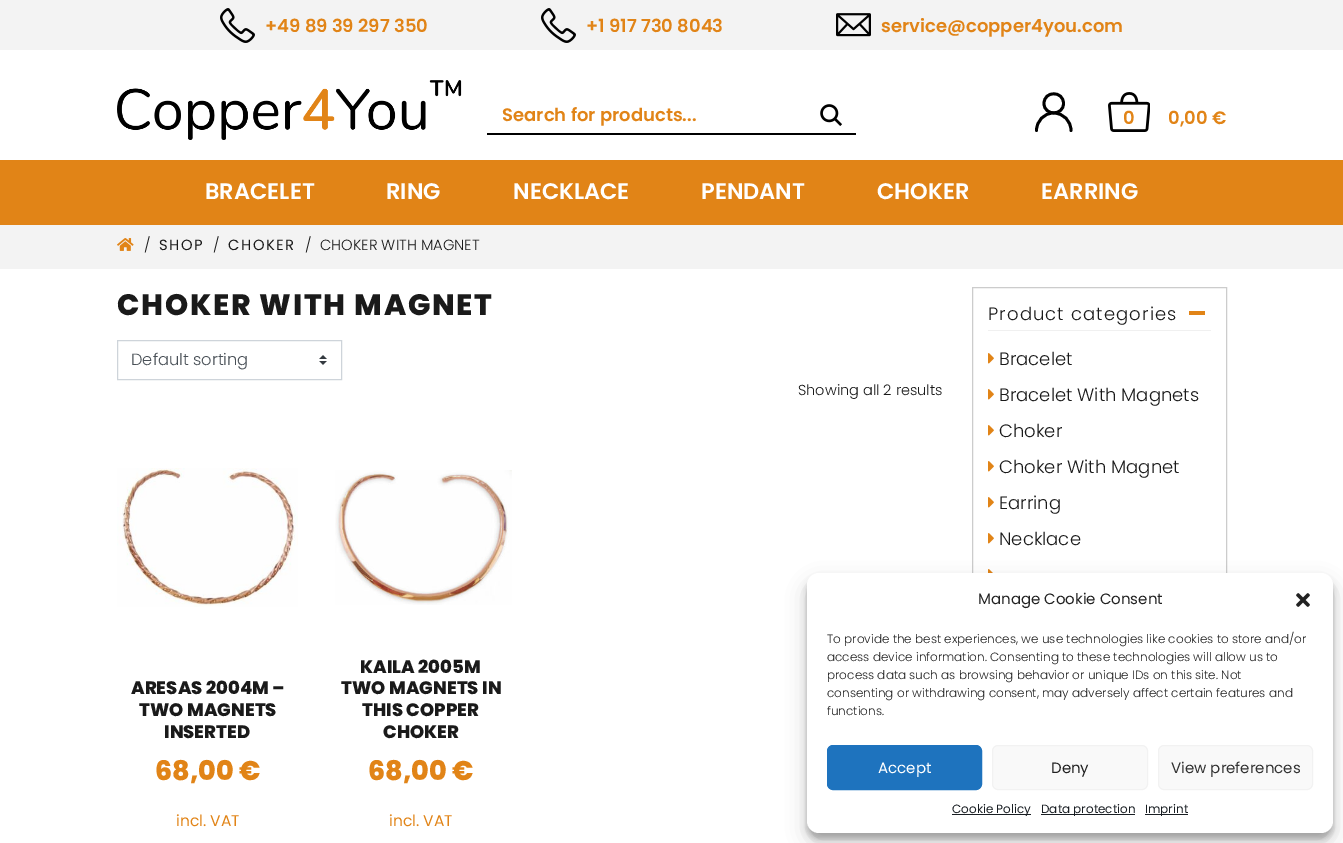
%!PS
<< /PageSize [1343 843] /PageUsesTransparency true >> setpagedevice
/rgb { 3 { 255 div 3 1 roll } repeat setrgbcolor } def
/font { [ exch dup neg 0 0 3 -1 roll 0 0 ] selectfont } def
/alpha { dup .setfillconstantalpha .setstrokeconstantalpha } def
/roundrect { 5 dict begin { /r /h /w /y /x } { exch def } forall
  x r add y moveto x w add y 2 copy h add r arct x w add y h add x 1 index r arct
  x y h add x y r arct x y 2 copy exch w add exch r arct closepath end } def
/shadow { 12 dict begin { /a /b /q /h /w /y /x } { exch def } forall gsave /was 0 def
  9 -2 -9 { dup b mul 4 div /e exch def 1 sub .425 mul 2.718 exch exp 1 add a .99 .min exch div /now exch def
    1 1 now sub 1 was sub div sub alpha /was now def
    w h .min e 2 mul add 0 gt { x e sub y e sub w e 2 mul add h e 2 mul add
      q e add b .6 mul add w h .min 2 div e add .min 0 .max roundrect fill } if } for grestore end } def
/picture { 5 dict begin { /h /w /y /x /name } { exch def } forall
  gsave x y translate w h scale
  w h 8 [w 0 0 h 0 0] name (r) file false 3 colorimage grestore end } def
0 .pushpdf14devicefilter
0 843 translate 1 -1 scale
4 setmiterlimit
255 255 255 rgb
0 0 1343 843 rectfill
243 243 243 rgb
0 0 1343 50 rectfill
(img/1.rgb) 220 8 35 35 picture
(img/1.rgb) 541 8 35 35 picture
(img/2.rgb) 836 13 35 24 picture
(img/3.rgb) 117 80 345 60 picture
0 0 0 rgb
487 133 369 2 rectfill
(img/4.rgb) 820 104 22 22 picture
2.8 setlinewidth
1063.5 103.5 moveto 1063.5 116 1044 116 1044 103.5 curveto 1044 90.5 1063.5 90.5 1063.5 103.5 curveto closepath stroke
1 setlinecap
1036.5 130.5 moveto 1036.5 121 1044 113 1053.5 113 curveto 1063.5 113 1071 121 1071 130.5 curveto stroke
(img/5.rgb) 1108 92 42 40 picture
225 132 23 rgb
0 160 1343 65 rectfill
243 243 243 rgb
0 225 1343 44 rectfill
(img/6.rgb) 117 238 17 13 picture
(img/7.rgb) 319 355 8 10 picture
206 212 218 rgb
1 setlinewidth
0 setlinecap
117.5 340.5 224 39 rectstroke
(img/8.rgb) 117 468 181 139 picture
(img/9.rgb) 335 470 177 135 picture
204 204 204 rgb
972.5 287.5 254 419 rectstroke
240 240 240 rgb
988 330 223 1 rectfill
225 132 23 rgb
1189 311 16 4 rectfill
(img/10.rgb) 988 353 6 11 picture
(img/10.rgb) 988 389 6 11 picture
(img/10.rgb) 988 425 6 11 picture
(img/10.rgb) 988 461 6 11 picture
(img/10.rgb) 988 497 6 11 picture
(img/10.rgb) 988 533 6 11 picture
(img/11.rgb) 988 569 5 4 picture
0 0 0 rgb
807 579 526 260 12 3 0.23 shadow
807 583 526 260 12 10 0.19 shadow
255 255 255 rgb
807 573 526 260 12 roundrect fill
(img/12.rgb) 1296 593 14 14 picture
30 115 190 rgb
827.5 745.5 154 44 5.5 roundrect gsave fill grestore
stroke
249 249 249 rgb
992.5 745.5 155 44 5.5 roundrect gsave fill grestore
242 242 242 rgb
stroke
249 249 249 rgb
1158.5 745.5 154 44 5.5 roundrect gsave fill grestore
242 242 242 rgb
stroke
[
  [952 814 79 1 25 30 35]
  [1041 814 94 1 25 30 35]
  [1145 814 43 1 25 30 35]
] { aload pop rgb rectfill } forall
/Poppins-SemiBold 18 font
225 132 23 rgb
[
  [(+49 89 39 297 350) 265 32]
  [(+1 917 730 8043) 586 32]
  [(service@copper4you.com) 881 32]
  [(Search for products...) 502 121]
  [(0) 1123 124]
  [(0,00) 1168 124]
  [(€) 1212 124]
] { aload pop moveto show } forall
/Poppins-SemiBold 22.5 font
255 255 255 rgb
[
  [(BRACELET) 205 199]
  [(RING) 386 199]
  [(NECKLACE) 513 199]
  [(PENDANT) 701 199]
  [(CHOKER) 877 199]
  [(EARRING) 1041 199]
] { aload pop moveto show } forall
/Poppins-Light 14.75 font
26 26 26 rgb
144 250 moveto (/) show
/Poppins-Regular 14.75 font
159 250 moveto 1.5 0 (SHOP) ashow
/Poppins-Light 14.75 font
213 250 moveto (/) show
/Poppins-Regular 14.75 font
228 250 moveto 1.5 0 (CHOKER) ashow
/Poppins-Light 14.75 font
305 250 moveto (/) show
320 250 moveto (CHOKER WITH MAGNET) show
/Poppins-ExtraBold 29.5 font
117 315 moveto 1.75 0 (CHOKER WITH MAGNET) ashow
/Poppins-Light 16.25 font
73 80 87 rgb
131 365 moveto (Default sorting) show
/Poppins-Light 14.5 font
26 26 26 rgb
798 395 moveto (Showing all 2 results) show
/Poppins-ExtraBold 18 font
[
  [(ARESAS 2004M –) 131 694]
  [(TWO MAGNETS) 139 716]
  [(INSERTED) 164 738]
] { aload pop moveto show } forall
/Poppins-ExtraBold 27 font
225 132 23 rgb
155 780 moveto (68,00 €) show
/Poppins-Regular 15.5 font
176 826 moveto (incl. VAT) show
/Poppins-ExtraBold 18 font
26 26 26 rgb
[
  [(KAILA 2005M) 360 673]
  [(TWO MAGNETS IN) 341 694]
  [(THIS COPPER) 362 716]
  [(CHOKER) 383 738]
] { aload pop moveto show } forall
/Poppins-ExtraBold 27 font
225 132 23 rgb
368 780 moveto (68,00 €) show
/Poppins-Regular 15.5 font
389 826 moveto (incl. VAT) show
/Poppins-Light 18 font
26 26 26 rgb
988 320 moveto 1.1 0 (Product categories) ashow
[
  [(Bracelet) 999 365]
  [(Bracelet With Magnets) 999 401]
  [(Choker) 999 437]
  [(Choker With Magnet) 999 473]
  [(Earring) 999 509]
  [(Necklace) 999 545]
] { aload pop moveto show } forall
/Poppins-Regular 15 font
34 34 34 rgb
978 604 moveto (Manage Cookie Consent) show
/Poppins-Light 12 font
[
  [(To provide the best experiences, we use technologies like cookies to store and/or) 827 643]
  [(access device information. Consenting to these technologies will allow us to) 827 661]
  [(process data such as browsing behavior or unique IDs on this site. Not) 827 679]
  [(consenting or withdrawing consent, may adversely affect certain features and) 827 697]
  [(functions.) 827 715]
] { aload pop moveto show } forall
/Poppins-Regular 15 font
255 255 255 rgb
878 773 moveto (Accept) show
34 34 34 rgb
1051 773 moveto (Deny) show
51 51 51 rgb
1171 773 moveto (View preferences) show
/Poppins-Regular 12 font
25 30 35 rgb
[
  [(Cookie Policy) 952 813]
  [(Data protection) 1041 813]
  [(Imprint) 1145 813]
] { aload pop moveto show } forall
.poppdf14devicefilter showpage
